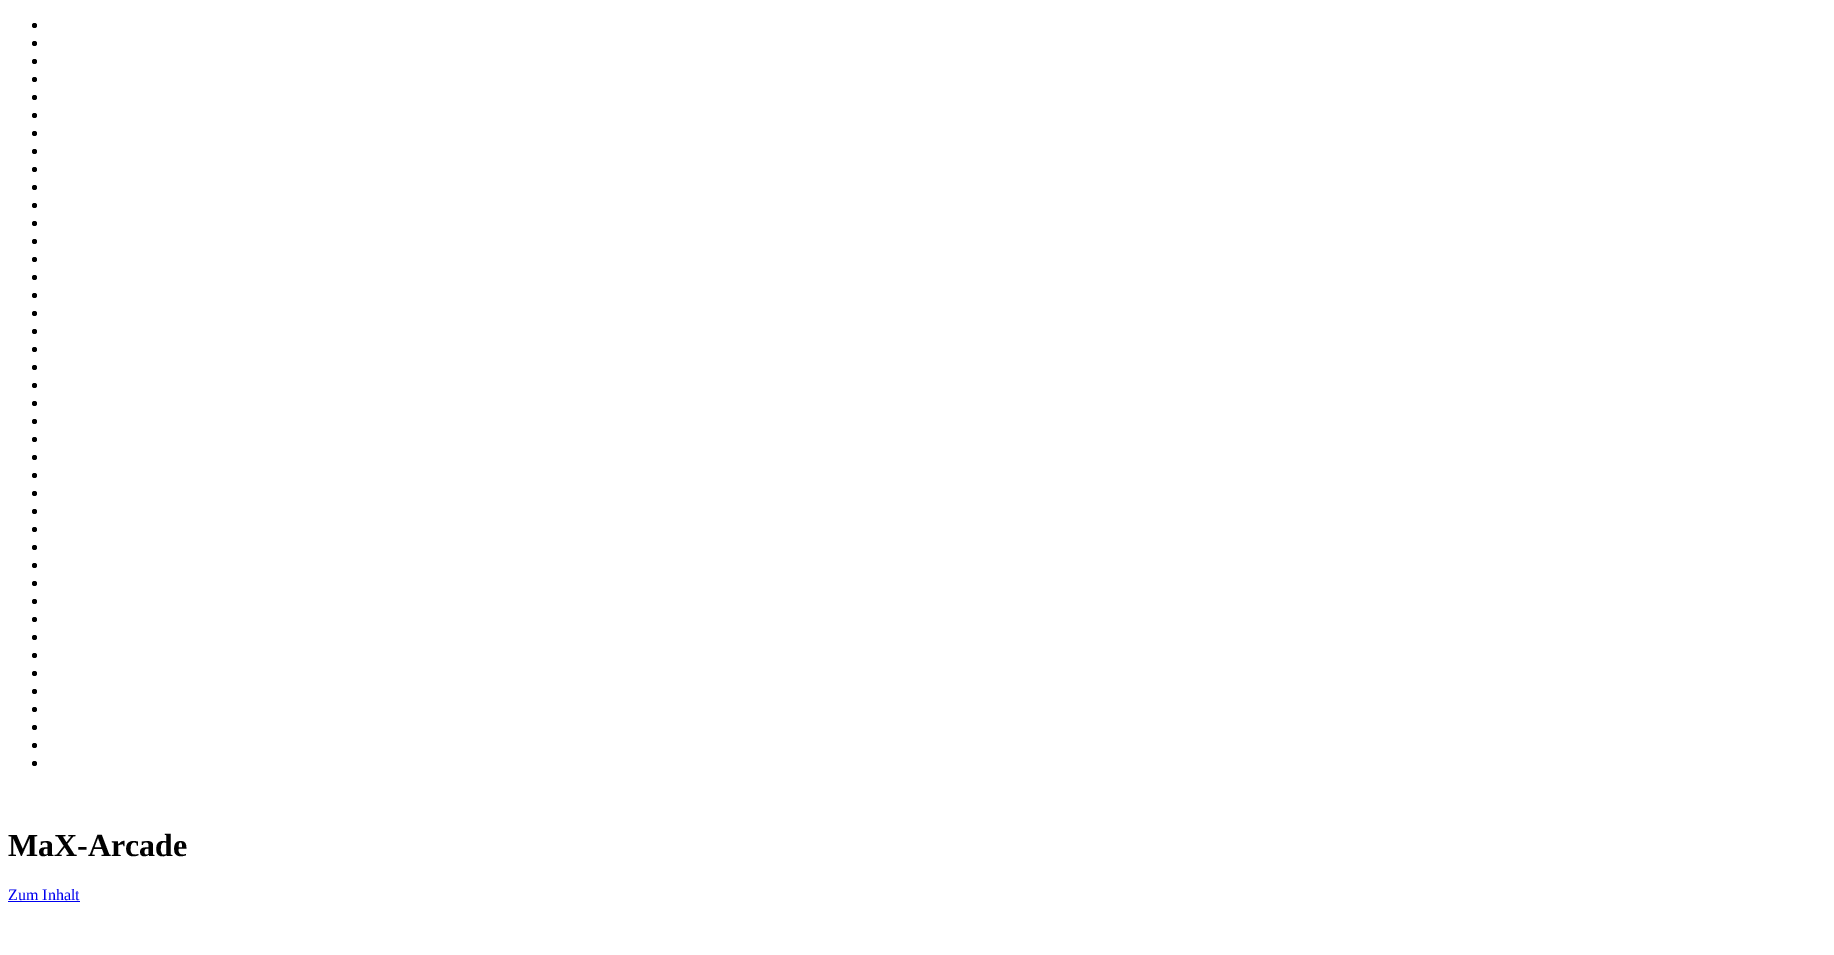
%!PS
<< /PageSize [1834 955] >> setpagedevice
/rgb { 3 { 255 div 3 1 roll } repeat setrgbcolor } def
/font { [ exch dup neg 0 0 3 -1 roll 0 0 ] selectfont } def
/circle { newpath 0 360 arc closepath } def
0 955 translate 1 -1 scale
4 setmiterlimit
255 255 255 rgb
0 0 1834 955 rectfill
0 0 0 rgb
34.5 25.5 2.5 circle fill
34.5 43.5 2.5 circle fill
34.5 61.5 2.5 circle fill
34.5 79.5 2.5 circle fill
34.5 97.5 2.5 circle fill
34.5 115.5 2.5 circle fill
34.5 133.5 2.5 circle fill
34.5 151.5 2.5 circle fill
34.5 169.5 2.5 circle fill
34.5 187.5 2.5 circle fill
34.5 205.5 2.5 circle fill
34.5 223.5 2.5 circle fill
34.5 241.5 2.5 circle fill
34.5 259.5 2.5 circle fill
34.5 277.5 2.5 circle fill
34.5 295.5 2.5 circle fill
34.5 313.5 2.5 circle fill
34.5 331.5 2.5 circle fill
34.5 349.5 2.5 circle fill
34.5 367.5 2.5 circle fill
34.5 385.5 2.5 circle fill
34.5 403.5 2.5 circle fill
34.5 421.5 2.5 circle fill
34.5 439.5 2.5 circle fill
34.5 457.5 2.5 circle fill
34.5 475.5 2.5 circle fill
34.5 493.5 2.5 circle fill
34.5 511.5 2.5 circle fill
34.5 529.5 2.5 circle fill
34.5 547.5 2.5 circle fill
34.5 565.5 2.5 circle fill
34.5 583.5 2.5 circle fill
34.5 601.5 2.5 circle fill
34.5 619.5 2.5 circle fill
34.5 637.5 2.5 circle fill
34.5 655.5 2.5 circle fill
34.5 673.5 2.5 circle fill
34.5 691.5 2.5 circle fill
34.5 709.5 2.5 circle fill
34.5 727.5 2.5 circle fill
34.5 745.5 2.5 circle fill
34.5 763.5 2.5 circle fill
0 0 238 rgb
8 901 72 1 rectfill
/LiberationSerif-Bold 32 font
0 0 0 rgb
8 856 moveto (MaX-Arcade) show
/LiberationSerif-Regular 16 font
0 0 238 rgb
8 900 moveto (Zum Inhalt) show
showpage
